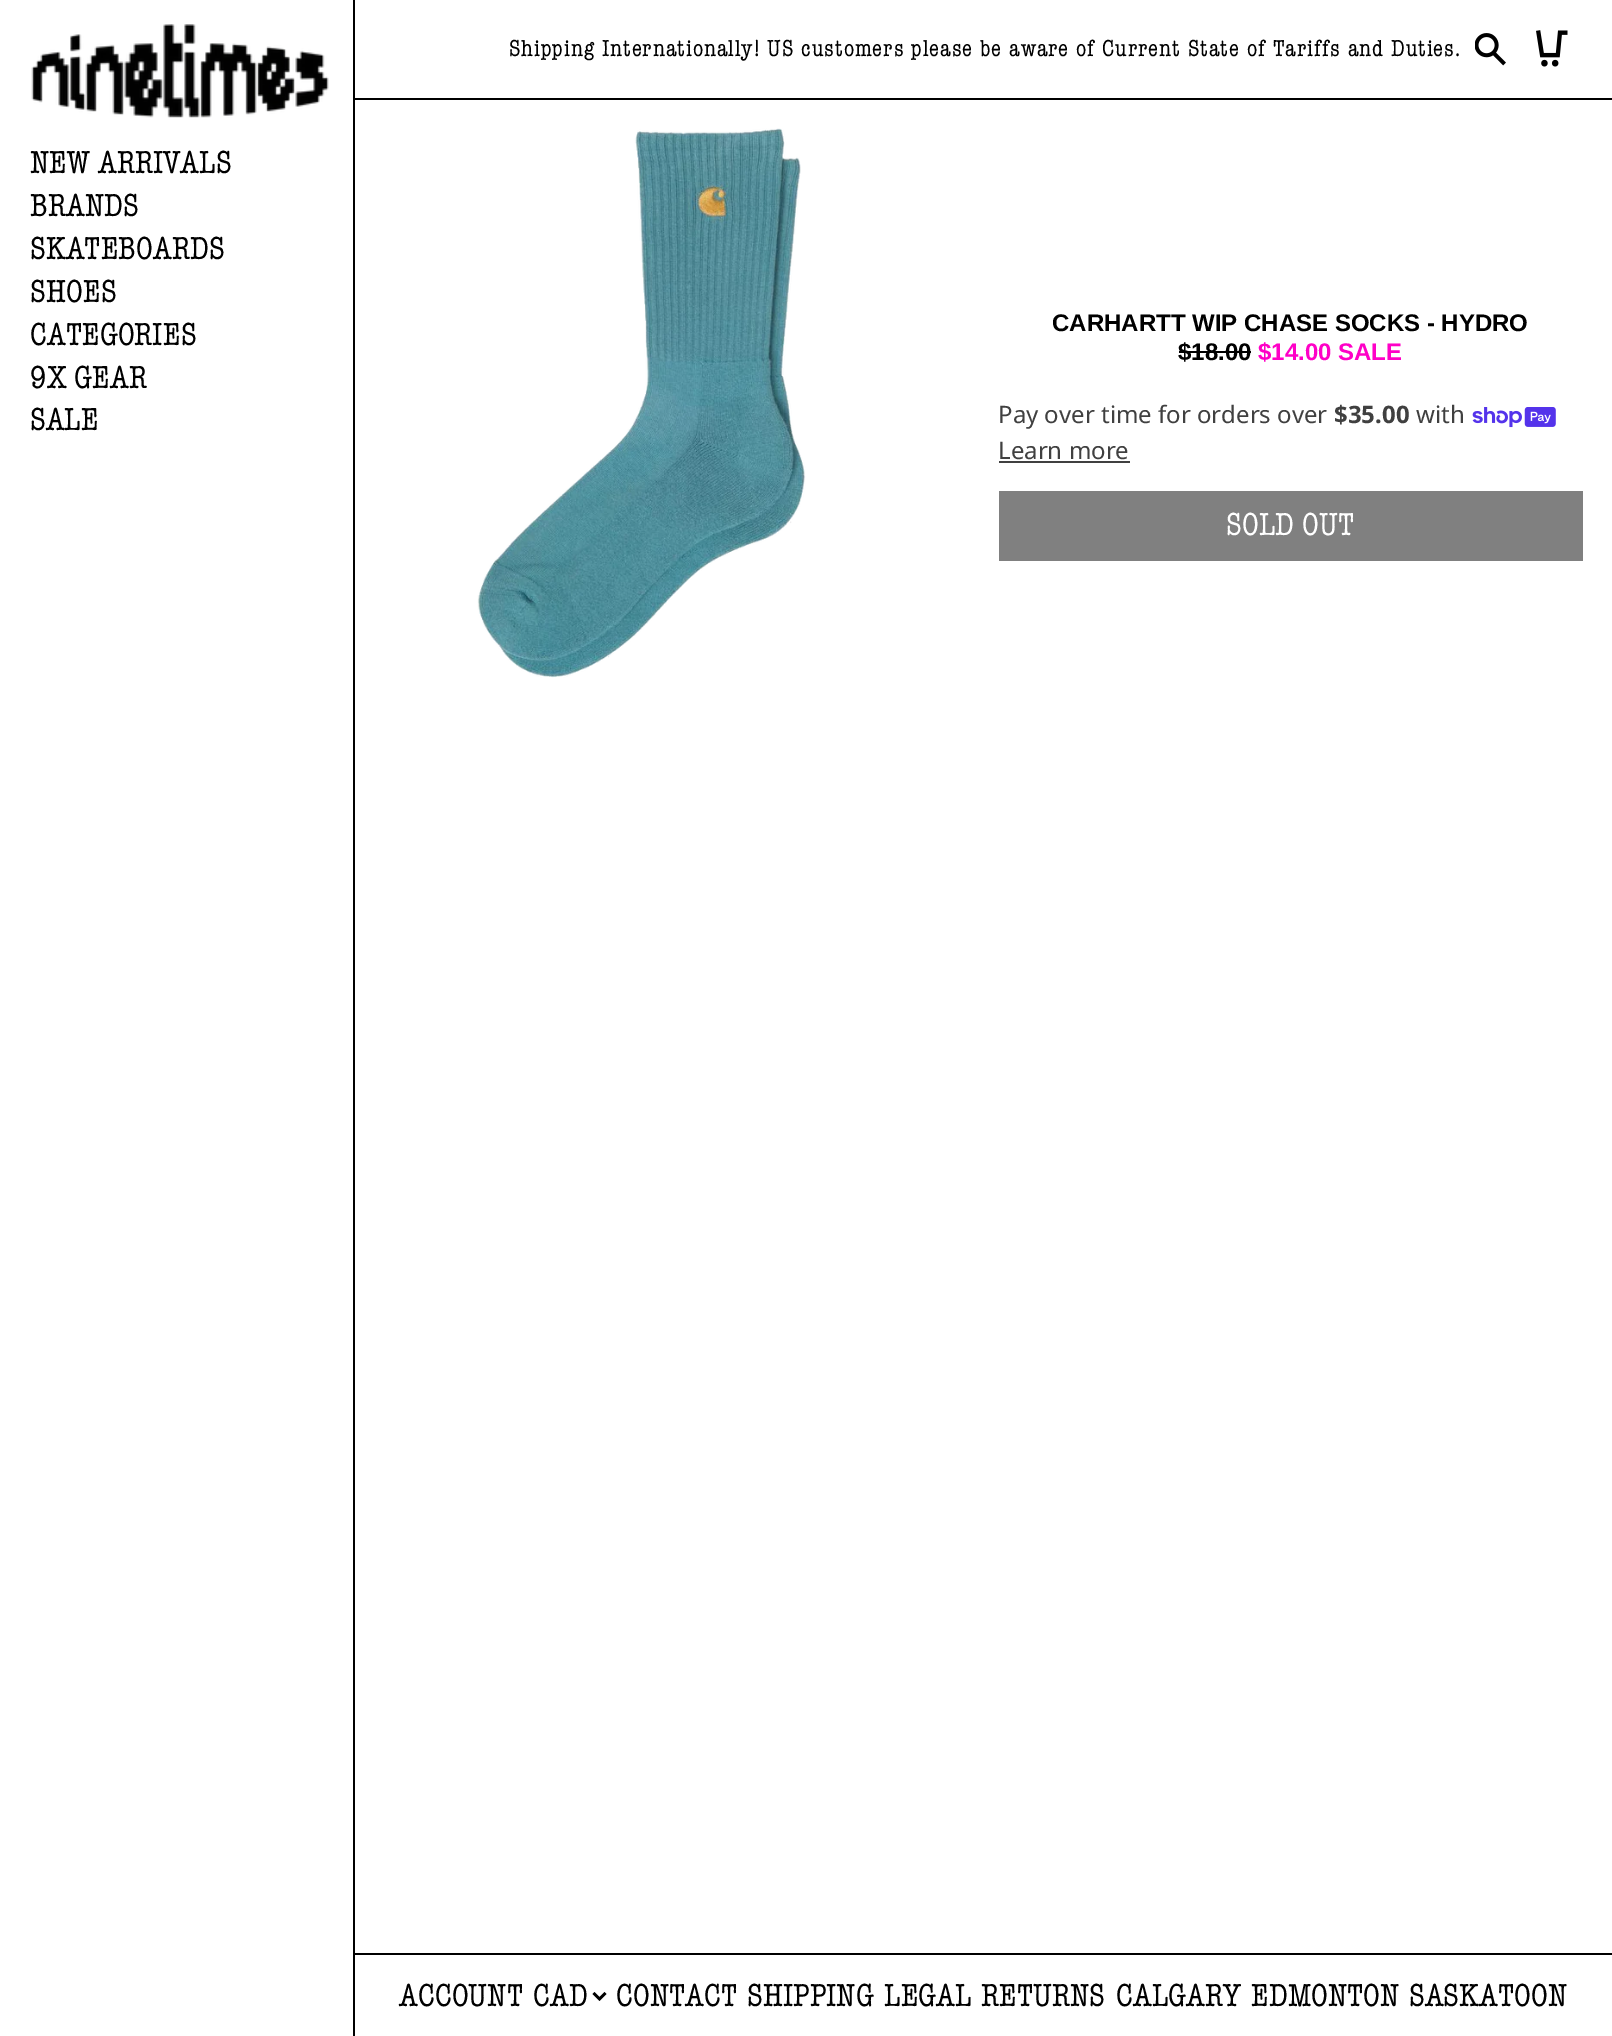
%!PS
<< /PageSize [1612 2036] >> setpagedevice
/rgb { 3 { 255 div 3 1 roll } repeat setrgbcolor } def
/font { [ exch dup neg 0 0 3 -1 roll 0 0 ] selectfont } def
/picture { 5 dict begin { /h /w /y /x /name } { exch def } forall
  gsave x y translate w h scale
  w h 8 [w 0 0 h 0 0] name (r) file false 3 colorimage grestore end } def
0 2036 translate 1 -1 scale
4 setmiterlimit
255 255 255 rgb
0 0 1612 2036 rectfill
[
  [354 98 1258 2 0 0 0]
  [354 1953 1258 2 0 0 0]
  [353 0 2 2036 0 0 0]
] { aload pop rgb rectfill } forall
(img/1.rgb) 31 24 298 94 picture
(img/2.rgb) 1475 33 31 33 picture
(img/3.rgb) 1536 30 32 37 picture
(img/4.rgb) 477 128 329 550 picture
1179 351 72 2 rectfill
(img/5.rgb) 1472 407 84 21 picture
64 64 64 rgb
999 461 131 2 rectfill
128 128 128 rgb
999 491 584 70 rectfill
0 0 0 rgb
2.5 setlinewidth
593.5 1993 moveto 599.5 1999 lineto 605.5 1993 lineto stroke
/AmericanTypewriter-Regular 33 font
[
  [(NEW ARRIVALS) 30 173]
  [(BRANDS) 30 216]
  [(SKATEBOARDS) 30 259]
  [(SHOES) 30 302]
  [(CATEGORIES) 30 345]
  [(9X GEAR) 30 388]
  [(SALE) 30 430]
] { aload pop moveto show } forall
/AmericanTypewriter-Regular 24 font
509 56 moveto 0.9 0 (Shipping Internationally! US customers please be aware of Current State of Tariffs and Duties.) ashow
/LiberationSans-Bold 24 font
1052 331 moveto (CARHARTT WIP CHASE SOCKS - HYDRO) show
1178 360 moveto ($18.00) show
255 0 199 rgb
1258 360 moveto ($14.00 SALE) show
/NotoSans-Regular 24 font
64 64 64 rgb
998 423 moveto (Pay over time for orders over) show
/NotoSans-Bold 24 font
1334 423 moveto ($35.00) show
/NotoSans-Regular 24 font
1416 423 moveto (with) show
998 459 moveto (Learn more) show
/AmericanTypewriter-Regular 33 font
255 255 255 rgb
1226 535 moveto (SOLD OUT) show
0 0 0 rgb
[
  [(ACCOUNT) 399 2006]
  [(CAD) 533 2006]
  [(CONTACT) 616 2006]
  [(SHIPPING) 747 2006]
  [(LEGAL) 884 2006]
  [(RETURNS) 981 2006]
  [(CALGARY) 1116 2006]
  [(EDMONTON) 1251 2006]
  [(SASKATOON) 1409 2006]
] { aload pop moveto show } forall
showpage
